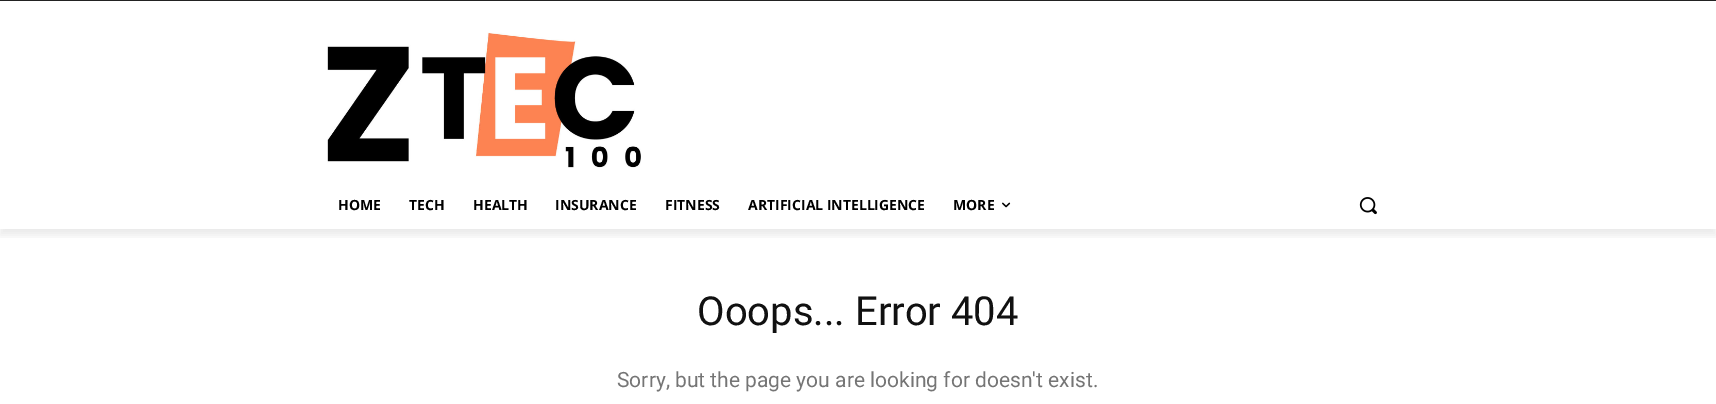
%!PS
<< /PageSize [1716 404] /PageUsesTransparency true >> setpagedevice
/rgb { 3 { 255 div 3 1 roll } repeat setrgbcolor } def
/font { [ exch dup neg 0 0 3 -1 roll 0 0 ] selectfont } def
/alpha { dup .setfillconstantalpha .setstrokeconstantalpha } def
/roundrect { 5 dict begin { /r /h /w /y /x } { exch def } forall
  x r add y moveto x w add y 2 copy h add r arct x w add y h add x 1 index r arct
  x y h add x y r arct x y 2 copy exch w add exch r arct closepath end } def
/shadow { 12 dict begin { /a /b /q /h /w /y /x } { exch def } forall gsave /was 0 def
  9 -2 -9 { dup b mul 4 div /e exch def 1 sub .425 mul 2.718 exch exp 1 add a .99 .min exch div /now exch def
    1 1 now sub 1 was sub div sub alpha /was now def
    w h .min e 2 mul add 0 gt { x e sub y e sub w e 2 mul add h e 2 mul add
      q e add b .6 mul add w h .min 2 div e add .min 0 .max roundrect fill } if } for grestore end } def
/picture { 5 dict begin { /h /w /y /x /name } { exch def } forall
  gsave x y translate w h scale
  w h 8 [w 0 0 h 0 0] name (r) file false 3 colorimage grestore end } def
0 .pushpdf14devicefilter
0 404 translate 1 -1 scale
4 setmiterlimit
255 255 255 rgb
0 0 1716 404 rectfill
34 34 34 rgb
0 0 1716 1 rectfill
(img/1.rgb) 327 32 314 136 picture
gsave
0 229 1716 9 rectclip
0 0 0 rgb
0 6 1716 229 0 4 0.08 shadow
grestore
(img/2.rgb) 1002 202 9 6 picture
(img/3.rgb) 1359 197 18 18 picture
/OpenSans-Bold 14 font
0 0 0 rgb
[
  [(HOME) 338 210]
  [(TECH) 409 210]
  [(HEALTH) 473 210]
  [(INSURANCE) 555 210]
  [(FITNESS) 665 210]
  [(ARTIFICIAL INTELLIGENCE) 748 210]
  [(MORE) 953 210]
] { aload pop moveto show } forall
/Roboto-Regular 40 font
17 17 17 rgb
697 325 moveto (Ooops... Error 404) show
/Roboto-Regular 21 font
117 117 117 rgb
617 387 moveto (Sorry, but the page you are looking for doesn't exist.) show
.poppdf14devicefilter showpage
